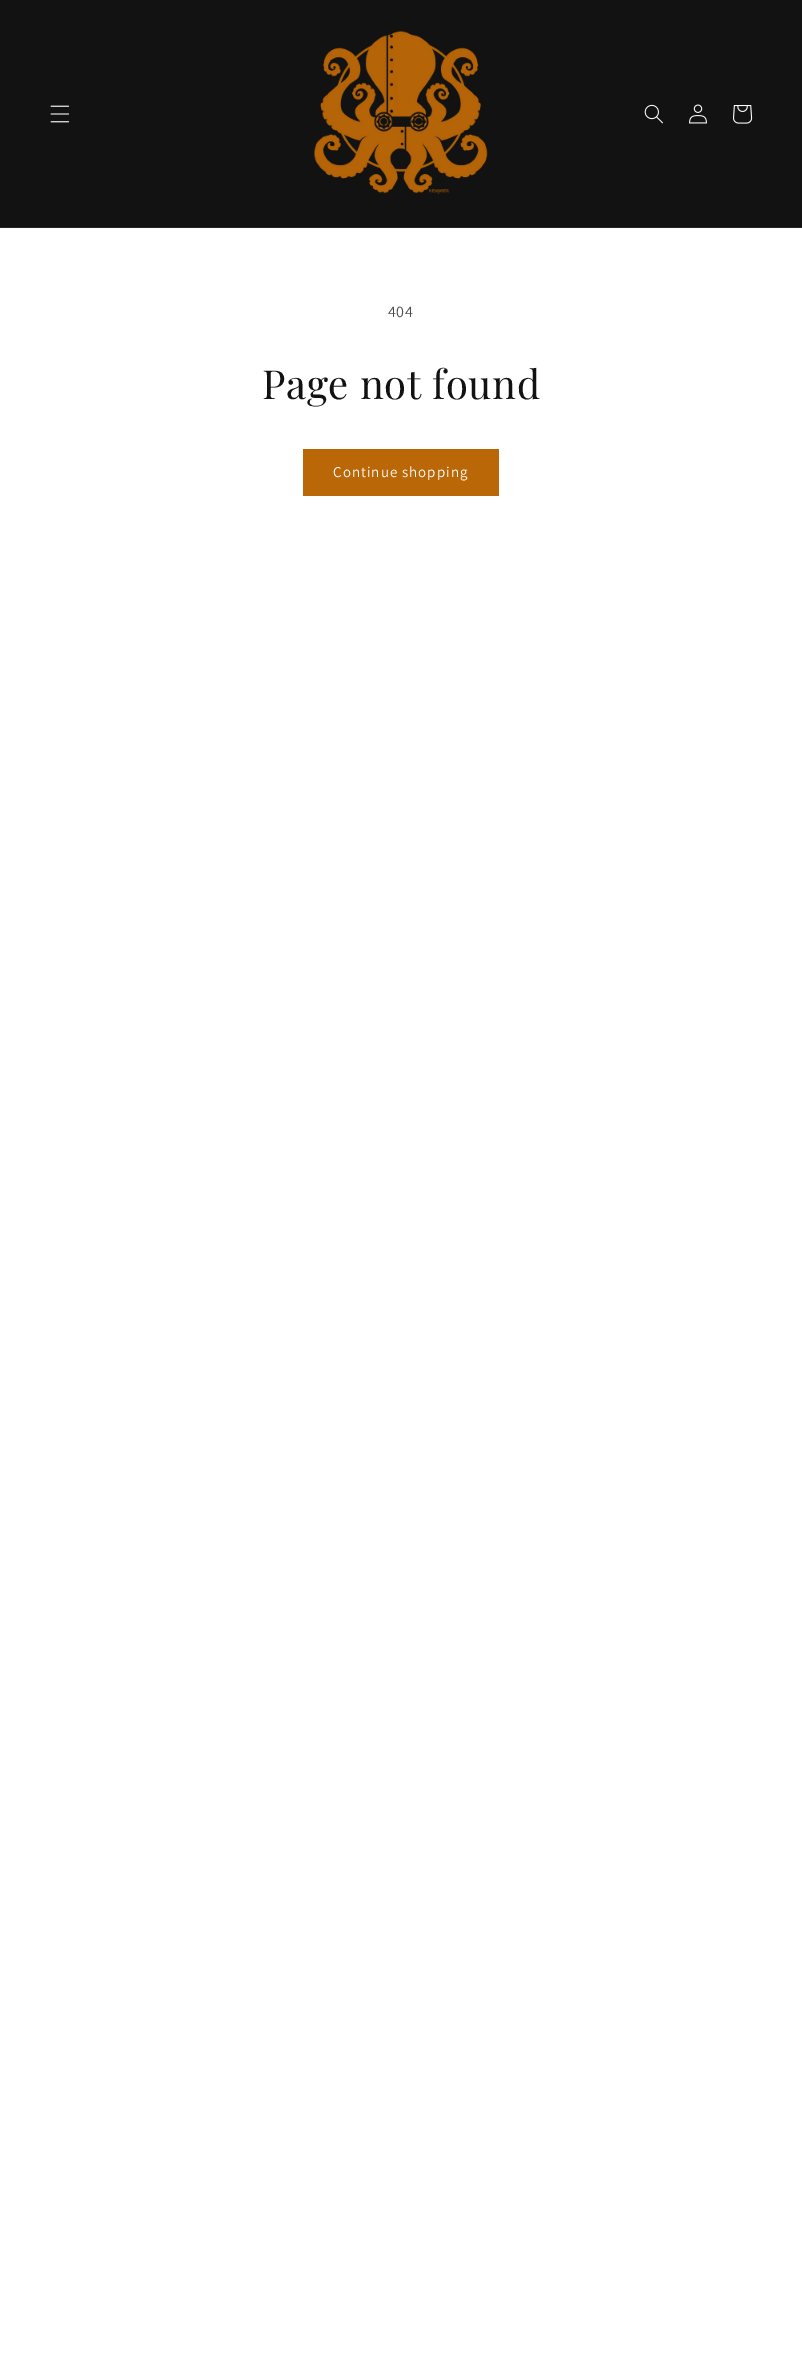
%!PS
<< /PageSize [802 2380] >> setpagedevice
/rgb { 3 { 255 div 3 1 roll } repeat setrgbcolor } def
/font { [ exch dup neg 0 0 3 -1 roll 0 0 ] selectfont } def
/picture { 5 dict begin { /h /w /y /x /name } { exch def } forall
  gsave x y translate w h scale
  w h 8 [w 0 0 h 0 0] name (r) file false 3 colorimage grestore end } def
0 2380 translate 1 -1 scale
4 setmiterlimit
255 255 255 rgb
0 0 802 2380 rectfill
18 18 18 rgb
0 0 802 227 rectfill
37 37 37 rgb
0 227 802 1 rectfill
(img/1.rgb) 50 105 20 18 picture
(img/2.rgb) 313 30 175 164 picture
(img/3.rgb) 644 104 19 20 picture
(img/4.rgb) 689 104 18 20 picture
(img/5.rgb) 733 105 20 19 picture
186 103 8 rgb
303 449 196 47 rectfill
/Assistant-Regular 16 font
77 77 77 rgb
388 317 moveto 0.6 0 (404) ashow
/PlayfairDisplay-Regular 40 font
18 18 18 rgb
262 399 moveto 0.6 0 (Page not found) ashow
/Assistant-Regular 15 font
255 255 255 rgb
333 477 moveto 1 0 (Continue shopping) ashow
showpage
